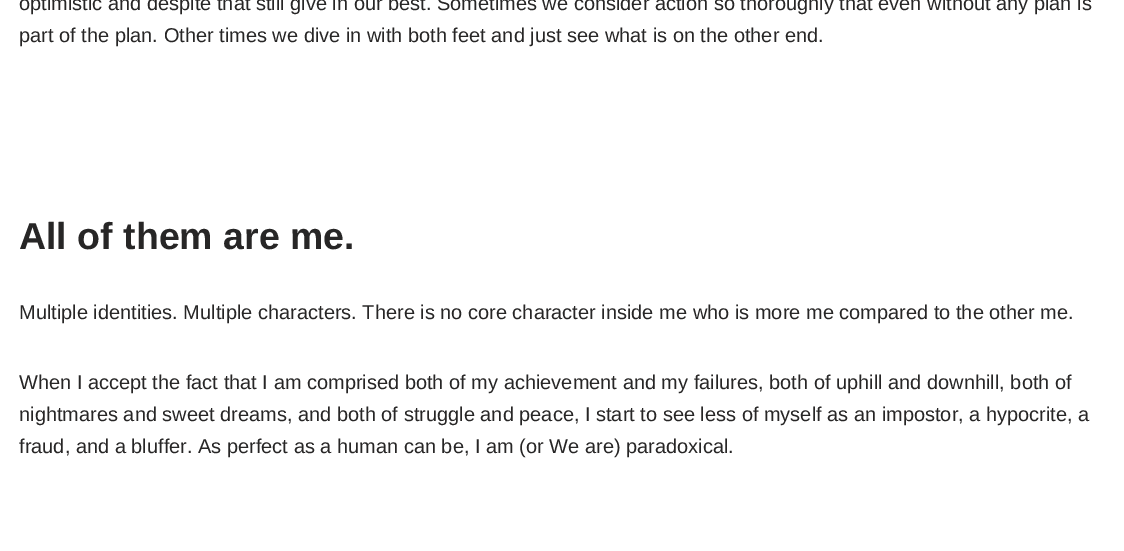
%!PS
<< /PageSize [1124 551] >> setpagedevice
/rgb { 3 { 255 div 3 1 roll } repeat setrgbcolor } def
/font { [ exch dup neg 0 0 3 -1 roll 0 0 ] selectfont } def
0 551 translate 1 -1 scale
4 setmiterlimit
255 255 255 rgb
0 0 1124 551 rectfill
/LiberationSans-Regular 20 font
39 38 38 rgb
19 10 moveto (optimistic and despite that still give in our best. Sometimes we consider action so thoroughly that even without any plan is) show
19 42 moveto (part of the plan. Other times we dive in with both feet and just see what is on the other end.) show
/LiberationSans-Bold 37.5 font
19 249 moveto (All of them are me.) show
/LiberationSans-Regular 20 font
[
  [(Multiple identities. Multiple characters. There is no core character inside me who is more me compared to the other me.) 19 319]
  [(When I accept the fact that I am comprised both of my achievement and my failures, both of uphill and downhill, both of) 19 389]
  [(nightmares and sweet dreams, and both of struggle and peace, I start to see less of myself as an impostor, a hypocrite, a) 19 421]
  [(fraud, and a bluffer. As perfect as a human can be, I am \(or We are\) paradoxical.) 19 453]
] { aload pop moveto show } forall
showpage
